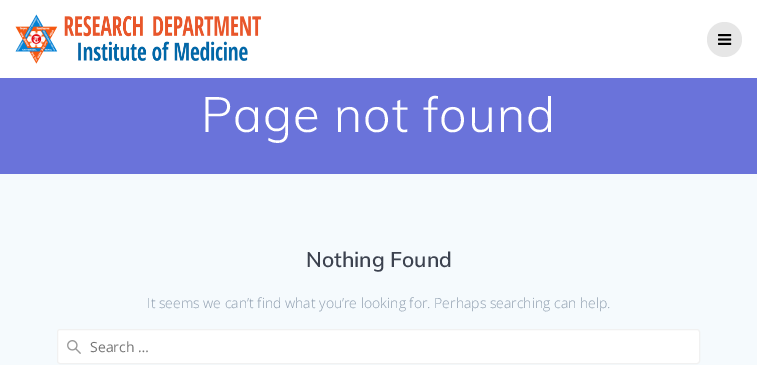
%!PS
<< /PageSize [757 365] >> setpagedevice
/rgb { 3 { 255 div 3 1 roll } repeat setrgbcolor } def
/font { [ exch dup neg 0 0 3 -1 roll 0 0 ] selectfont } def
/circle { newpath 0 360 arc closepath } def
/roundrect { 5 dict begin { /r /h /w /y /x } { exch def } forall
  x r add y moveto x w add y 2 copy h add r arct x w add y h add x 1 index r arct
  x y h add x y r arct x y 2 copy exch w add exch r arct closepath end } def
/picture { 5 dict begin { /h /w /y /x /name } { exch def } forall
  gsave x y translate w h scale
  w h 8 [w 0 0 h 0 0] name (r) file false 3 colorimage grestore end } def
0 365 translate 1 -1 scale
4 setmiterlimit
106 115 218 rgb
0 0 757 365 rectfill
255 255 255 rgb
0 0 757 78 rectfill
(img/1.rgb) 15 14 247 50 picture
230 230 230 rgb
724.5 39.5 17.5 circle fill
(img/2.rgb) 718 34 14 11 picture
245 250 253 rgb
0 174 757 191 rectfill
255 255 255 rgb
57 329 643 35 3 roundrect fill
(img/3.rgb) 67 340 14 14 picture
241 241 241 rgb
57.5 329.5 642 34 2.5 roundrect stroke
/Muli-Light 49 font
255 255 255 rgb
201 132 moveto 0.9 0 (Page not found) ashow
/Muli-SemiBold 21 font
60 66 79 rgb
306 267 moveto (Nothing Found) show
/OpenSans-Light 14 font
142 157 174 rgb
147 308 moveto (It seems we can’t find what you’re looking for. Perhaps searching can help.) show
/OpenSans-Regular 14 font
117 117 117 rgb
90 352 moveto (Search …) show
showpage
